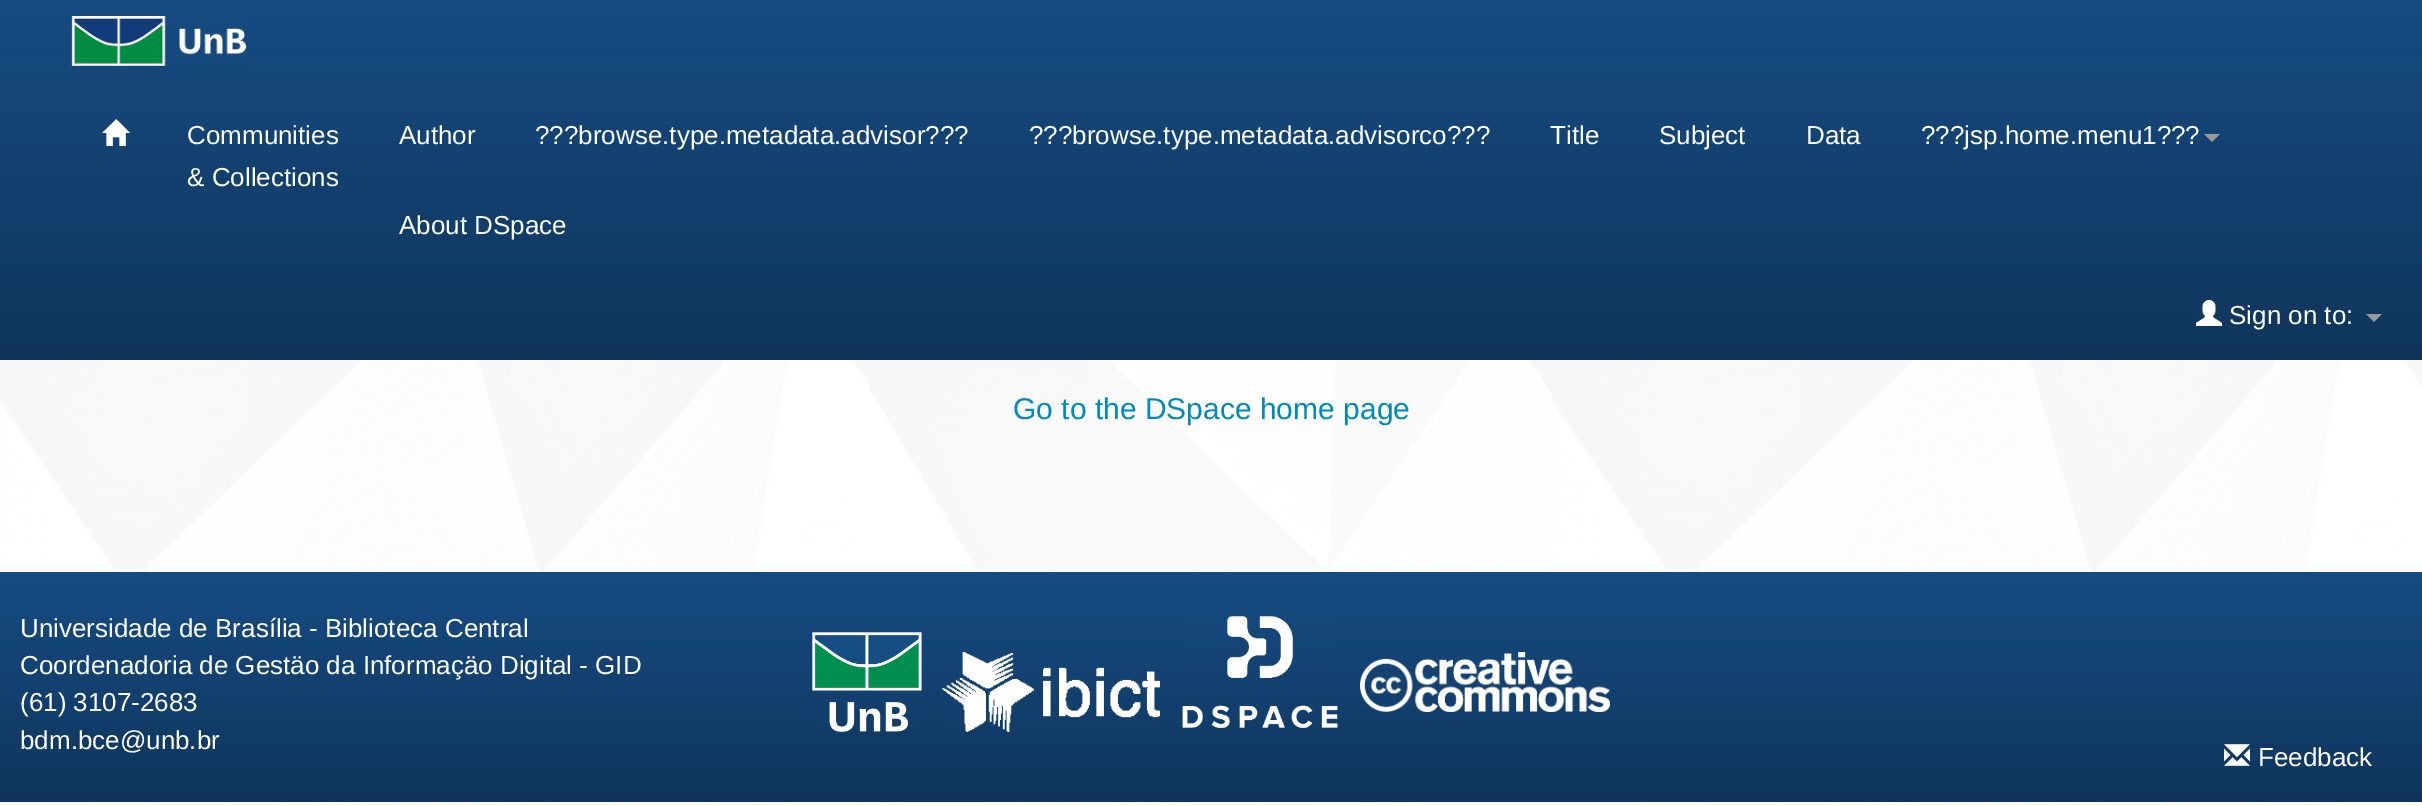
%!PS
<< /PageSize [2422 806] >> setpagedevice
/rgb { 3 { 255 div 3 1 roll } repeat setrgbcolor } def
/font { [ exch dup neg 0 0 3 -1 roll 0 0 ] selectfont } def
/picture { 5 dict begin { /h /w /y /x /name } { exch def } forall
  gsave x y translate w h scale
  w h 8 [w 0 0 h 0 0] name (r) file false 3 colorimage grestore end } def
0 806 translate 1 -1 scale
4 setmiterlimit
255 255 255 rgb
0 0 2422 806 rectfill
(img/1.rgb) 0 360 2422 446 picture
gsave 0 0 moveto 2422 0 lineto 2422 360 lineto 0 360 lineto closepath clip newpath
<< /ShadingType 2 /ColorSpace /DeviceRGB /Coords [1211 0 1211 360] /Extend [true true] /Function << /FunctionType 2 /Domain [0 1] /C0 [0.086 0.298 0.51] /C1 [0.059 0.208 0.357] /N 1 >> >> shfill grestore
(img/2.rgb) 71 16 176 50 picture
(img/3.rgb) 102 119 29 27 picture
153 153 153 rgb
2204 134 moveto 2220 134 lineto 2212 142 lineto closepath fill
(img/4.rgb) 2196 300 26 26 picture
2366 314 moveto 2382 314 lineto 2374 322 lineto closepath fill
gsave 0 572 moveto 2422 572 lineto 2422 802 lineto 0 802 lineto closepath clip newpath
<< /ShadingType 2 /ColorSpace /DeviceRGB /Coords [1211 572 1211 802] /Extend [true true] /Function << /FunctionType 2 /Domain [0 1] /C0 [0.086 0.298 0.514] /C1 [0.059 0.208 0.361] /N 1 >> >> shfill grestore
(img/5.rgb) 812 632 110 100 picture
(img/6.rgb) 942 652 218 80 picture
(img/7.rgb) 1182 616 156 112 picture
(img/8.rgb) 1360 652 250 60 picture
(img/9.rgb) 2224 744 26 22 picture
/LiberationSans-Regular 26 font
255 255 255 rgb
[
  [(Communities) 187 144]
  [(& Collections) 187 186]
  [(Author) 399 144]
  [(???browse.type.metadata.advisor???) 535 144]
  [(???browse.type.metadata.advisorco???) 1029 144]
  [(Title) 1550 144]
  [(Subject) 1659 144]
  [(Data) 1806 144]
  [(???jsp.home.menu1???) 1921 144]
  [(About DSpace) 399 234]
  [(Sign on to:) 2229 324]
] { aload pop moveto show } forall
/LiberationSans-Regular 30 font
0 140 186 rgb
1013 419 moveto (Go to the DSpace home page) show
/LiberationSans-Regular 26 font
255 255 255 rgb
[
  [(Universidade de Brasília - Biblioteca Central) 20 637]
  [(Coordenadoria de Gestäo da Informaçäo Digital - GID) 20 674]
  [(\(61\) 3107-2683) 20 711]
  [(bdm.bce@unb.br) 20 749]
  [(Feedback) 2258 766]
] { aload pop moveto show } forall
showpage
